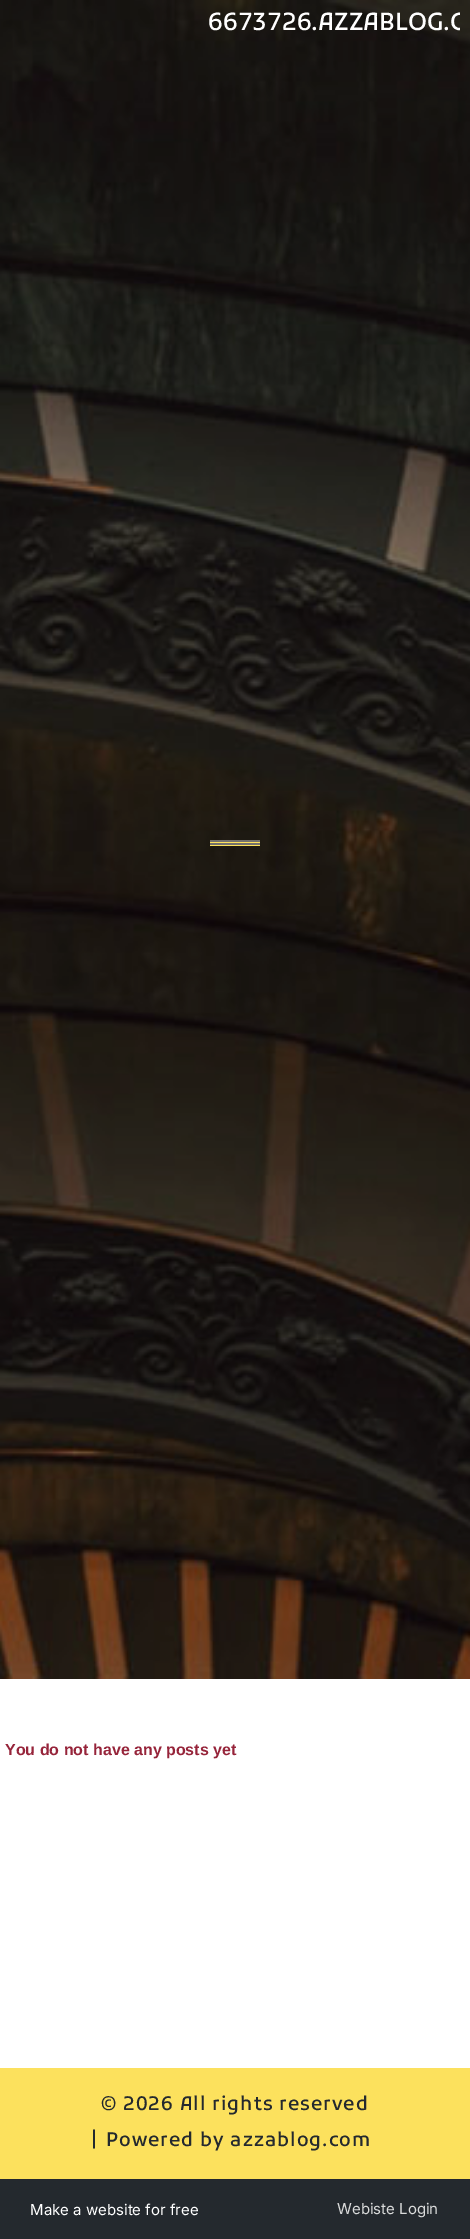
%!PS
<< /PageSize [470 2239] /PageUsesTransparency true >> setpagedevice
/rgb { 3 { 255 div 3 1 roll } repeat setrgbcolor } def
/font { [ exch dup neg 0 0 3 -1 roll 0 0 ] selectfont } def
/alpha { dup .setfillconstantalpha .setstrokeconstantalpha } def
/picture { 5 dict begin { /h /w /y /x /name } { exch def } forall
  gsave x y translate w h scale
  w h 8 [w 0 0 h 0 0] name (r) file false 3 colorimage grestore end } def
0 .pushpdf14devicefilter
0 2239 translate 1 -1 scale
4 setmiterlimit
255 255 255 rgb
0 0 470 2239 rectfill
(img/1.rgb) 0 0 470 1679 picture
0.4 alpha
[
  [210 840 50 5 247 247 247]
] { aload pop rgb rectfill } forall
1 alpha
[
  [210 842 50 1 252 225 93]
  [210 845 50 1 252 225 93]
  [0 2068 470 111 252 225 93]
  [0 2179 470 60 36 41 46]
] { aload pop rgb rectfill } forall
gsave
204 7 256 60 rectclip
/Kufam-Medium 24 font
255 255 255 rgb
208 30 moveto (6673726.AZZABLOG.C) show
grestore
/LiberationSans-Bold 16 font
150 36 58 rgb
5 1755 moveto (You do not have any posts yet) show
/Kufam-Medium 19 font
36 41 46 rgb
101 2110 moveto 1 0 (© 2026 All rights reserved) ashow
91 2144 moveto 1 0 (|) ashow
106 2146 moveto 1 0 (Powered by azzablog.com) ashow
/Inter-Regular 15 font
255 255 255 rgb
30 2215 moveto (Make a website for free) show
218 219 219 rgb
337 2214 moveto (Webiste Login) show
.poppdf14devicefilter showpage
